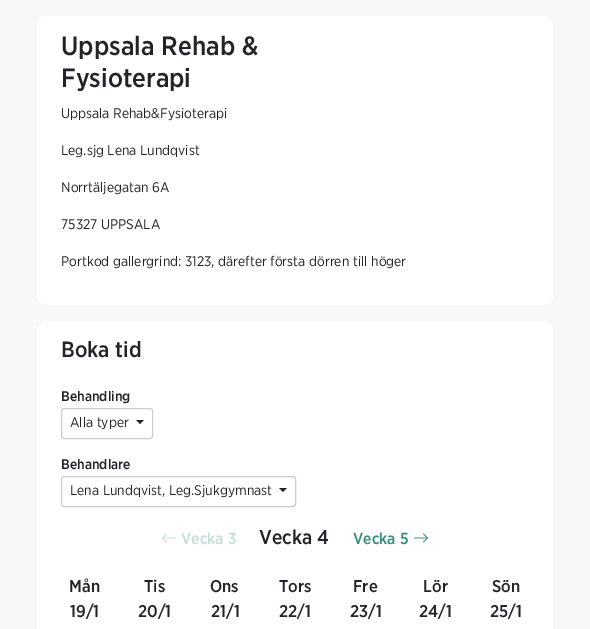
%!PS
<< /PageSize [590 629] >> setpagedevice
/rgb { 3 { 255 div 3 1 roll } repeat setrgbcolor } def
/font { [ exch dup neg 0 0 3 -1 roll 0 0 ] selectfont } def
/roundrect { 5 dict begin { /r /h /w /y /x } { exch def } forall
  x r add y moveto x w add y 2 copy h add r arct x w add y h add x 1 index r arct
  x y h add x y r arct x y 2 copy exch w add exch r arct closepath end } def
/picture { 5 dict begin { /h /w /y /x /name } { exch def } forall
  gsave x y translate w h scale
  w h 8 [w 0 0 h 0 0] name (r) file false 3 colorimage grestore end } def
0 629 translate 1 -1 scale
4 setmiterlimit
248 248 248 rgb
0 0 590 629 rectfill
255 255 255 rgb
37 16 516 289 10 roundrect fill
37 321 516 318 10 roundrect fill
204 204 204 rgb
61.5 408.5 91 30 2.5 roundrect stroke
33 37 41 rgb
136 420 moveto 144 420 lineto 140 424 lineto closepath fill
204 204 204 rgb
61.5 476.5 234 30 2.5 roundrect stroke
33 37 41 rgb
279 488 moveto 287 488 lineto 283 492 lineto closepath fill
(img/1.rgb) 162 533 14 10 picture
(img/2.rgb) 414 533 14 10 picture
/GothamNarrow-Medium 26.5 font
61 55 moveto (Uppsala Rehab &) show
61 87 moveto (Fysioterapi) show
/GothamNarrow-Regular 14 font
[
  [(Uppsala Rehab&Fysioterapi) 61 118]
  [(Leg.sjg Lena Lundqvist) 61 155]
  [(Norrtäljegatan 6A) 61 192]
  [(75327 UPPSALA) 61 229]
  [(Portkod gallergrind: 3123, därefter första dörren till höger) 61 266]
] { aload pop moveto show } forall
/GothamNarrow-Medium 22 font
61 357 moveto (Boka tid) show
/GothamNarrow-Medium 14 font
61 401 moveto (Behandling) show
/GothamNarrow-Regular 14 font
70 427 moveto (Alla typer) show
/GothamNarrow-Medium 14 font
61 469 moveto (Behandlare) show
/GothamNarrow-Regular 14 font
70 495 moveto (Lena Lundqvist, Leg.Sjukgymnast) show
/GothamNarrow-Medium 16 font
195 221 216 rgb
181 544 moveto (Vecka 3) show
/GothamNarrow-Medium 20 font
33 37 41 rgb
259 544 moveto (Vecka 4) show
/GothamNarrow-Medium 16 font
55 139 125 rgb
353 544 moveto (Vecka 5) show
/GothamNarrow-Medium 17 font
33 37 41 rgb
[
  [(Mån) 69 592]
  [(19/1) 70 617]
  [(Tis) 144 592]
  [(20/1) 138 617]
  [(Ons) 210 592]
  [(21/1) 211 617]
  [(Tors) 279 592]
  [(22/1) 279 617]
  [(Fre) 353 592]
  [(23/1) 350 617]
  [(Lör) 423 592]
  [(24/1) 419 617]
  [(Sön) 492 592]
  [(25/1) 490 617]
] { aload pop moveto show } forall
showpage
